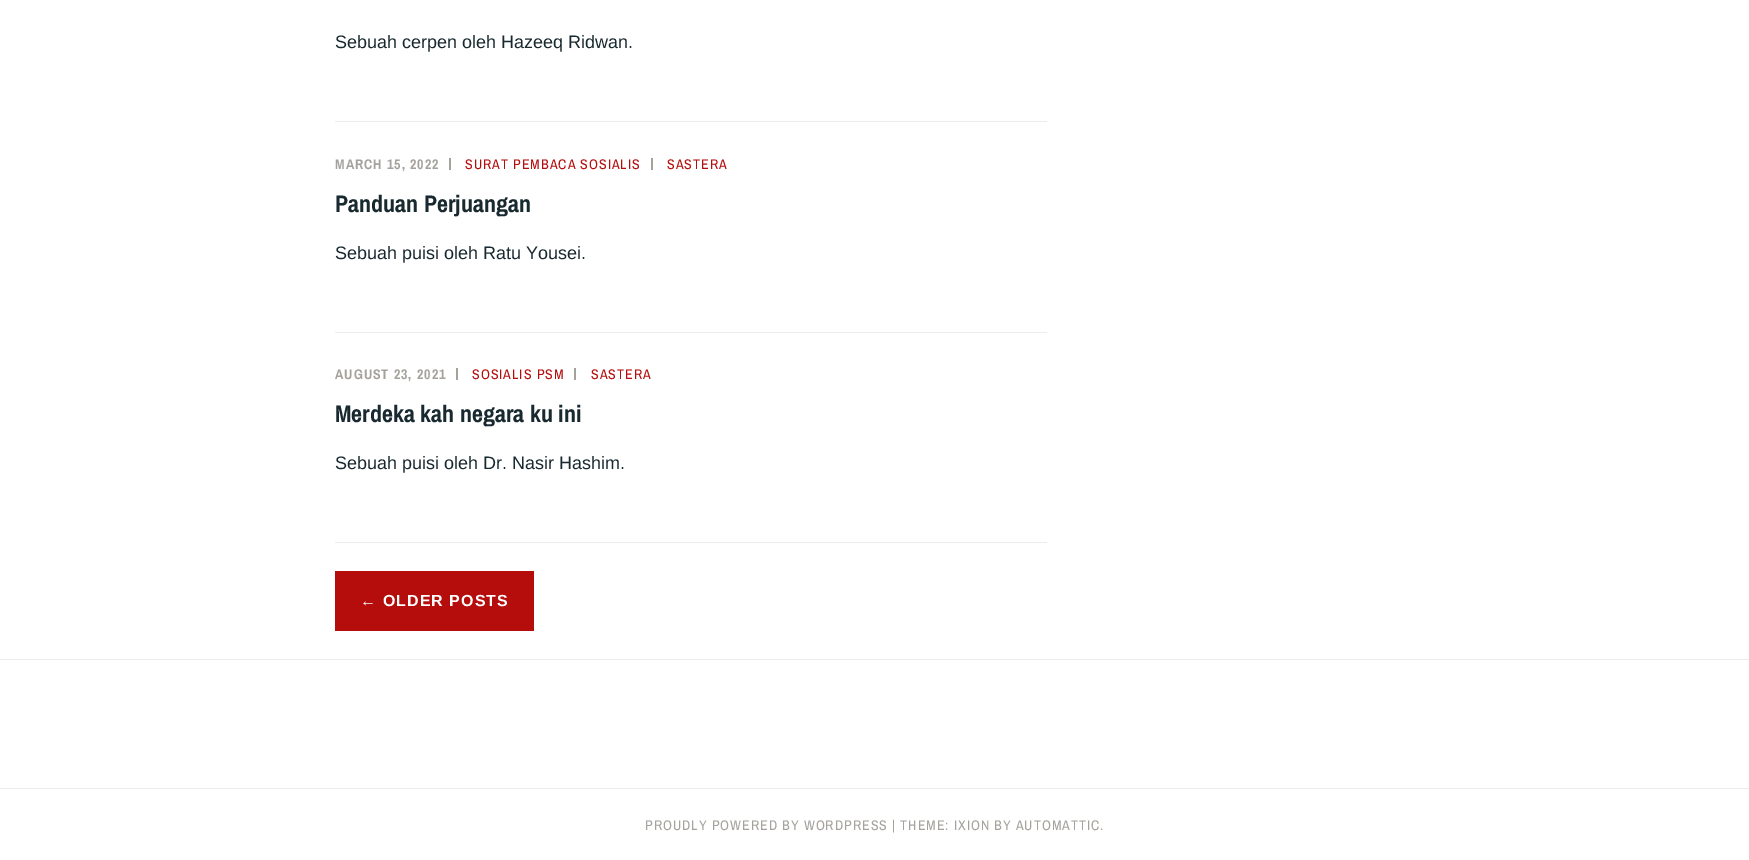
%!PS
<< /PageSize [1749 860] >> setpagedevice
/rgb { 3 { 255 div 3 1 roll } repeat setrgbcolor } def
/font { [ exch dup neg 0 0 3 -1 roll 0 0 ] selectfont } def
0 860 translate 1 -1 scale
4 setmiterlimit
255 255 255 rgb
0 0 1749 860 rectfill
[
  [335 121 712 1 238 236 232]
  [335 332 712 1 238 236 232]
  [449 158 2 12 165 162 157]
  [651 158 2 12 165 162 157]
  [335 542 712 1 238 236 232]
  [456 368 2 12 165 162 157]
  [574 368 2 12 165 162 157]
  [335 571 199 60 181 12 12]
  [0 659 1749 1 238 236 232]
  [0 788 1749 1 238 236 232]
] { aload pop rgb rectfill } forall
/LiberationSans-Regular 18 font
25 41 48 rgb
335 48 moveto (Sebuah cerpen oleh Hazeeq Ridwan.) show
/ArchivoNarrow-Bold 14 font
165 162 157 rgb
335 169 moveto 1 0 (MARCH 15, 2022) ashow
/ArchivoNarrow-Regular 14 font
181 12 12 rgb
465 169 moveto 1 0 (SURAT PEMBACA SOSIALIS) ashow
667 169 moveto 1 0 (SASTERA) ashow
/ArchivoNarrow-Bold 24 font
25 41 48 rgb
335 212 moveto (Panduan Perjuangan) show
/LiberationSans-Regular 18 font
335 259 moveto (Sebuah puisi oleh Ratu Yousei.) show
/ArchivoNarrow-Bold 14 font
165 162 157 rgb
335 379 moveto 1 0 (AUGUST 23, 2021) ashow
/ArchivoNarrow-Regular 14 font
181 12 12 rgb
472 379 moveto 1 0 (SOSIALIS PSM) ashow
591 379 moveto 1 0 (SASTERA) ashow
/ArchivoNarrow-Bold 24 font
25 41 48 rgb
335 422 moveto (Merdeka kah negara ku ini) show
/LiberationSans-Regular 18 font
335 469 moveto (Sebuah puisi oleh Dr. Nasir Hashim.) show
/LiberationSans-Bold 16 font
255 255 255 rgb
360 606 moveto 1 0 (←) ashow
383 606 moveto 1 0 (OLDER POSTS) ashow
/ArchivoNarrow-Regular 14 font
165 162 157 rgb
645 830 moveto 1 0 (PROUDLY POWERED BY WORDPRESS | THEME: IXION BY AUTOMATTIC.) ashow
showpage
